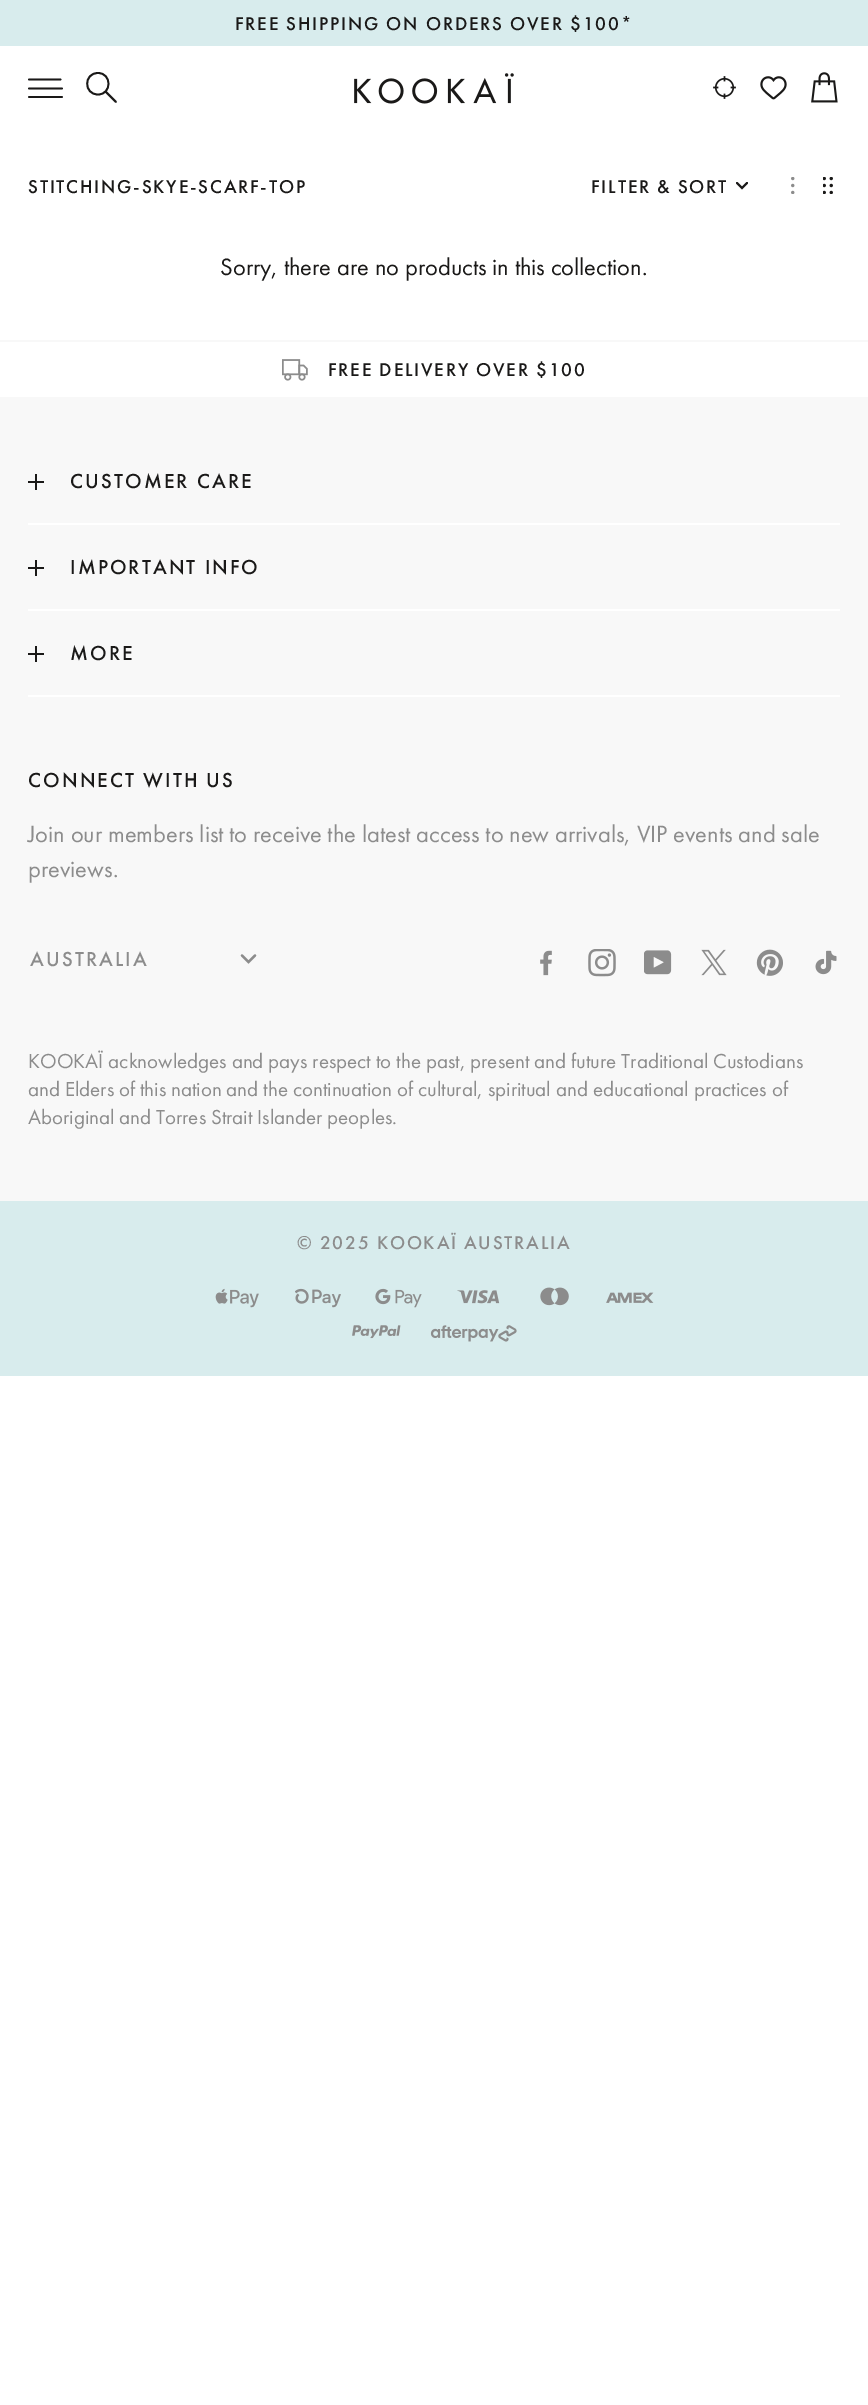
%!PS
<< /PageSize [868 2405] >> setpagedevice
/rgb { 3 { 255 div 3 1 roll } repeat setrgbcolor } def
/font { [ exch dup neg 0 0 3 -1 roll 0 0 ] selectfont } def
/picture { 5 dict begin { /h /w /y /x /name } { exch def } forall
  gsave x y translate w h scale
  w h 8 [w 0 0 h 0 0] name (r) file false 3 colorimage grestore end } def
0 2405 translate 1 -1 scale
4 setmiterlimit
255 255 255 rgb
0 0 868 2405 rectfill
216 236 237 rgb
0 0 868 46 rectfill
26 25 24 rgb
1.8 setlinewidth
1 setlinecap
29 79.5 moveto 60.5 79.5 lineto 29 88.5 moveto 62 88.5 lineto 29 97 moveto 62 97 lineto stroke
1 setlinejoin
98 94.5 moveto 112 94.5 112 73 98 73 curveto 83.5 73 83.5 94.5 98 94.5 curveto closepath 106 92 moveto 116 102 lineto stroke
(img/1.rgb) 354 73 160 31 picture
(img/2.rgb) 713 76 23 23 picture
(img/3.rgb) 760 76 27 24 picture
(img/4.rgb) 811 72 27 31 picture
2.1 setlinewidth
0 setlinejoin
737 183 moveto 742 188 lineto 747 183 lineto stroke
(img/5.rgb) 791 177 4 17 picture
(img/6.rgb) 823 177 10 17 picture
248 248 248 rgb
0 340 868 2 rectfill
(img/7.rgb) 282 359 26 22 picture
[
  [0 397 868 804 248 248 248]
  [28 481 16 2 26 25 24]
  [35 474 2 16 26 25 24]
  [28 523 812 2 255 255 255]
  [28 567 16 2 26 25 24]
  [35 560 2 16 26 25 24]
  [28 609 812 2 255 255 255]
  [28 653 16 2 26 25 24]
  [35 646 2 16 26 25 24]
  [28 695 812 2 255 255 255]
] { aload pop rgb rectfill } forall
140 140 140 rgb
2.2 setlinewidth
255 955.5 moveto 248.5 962 lineto 242 955.5 lineto stroke
(img/8.rgb) 540 950 12 26 picture
(img/9.rgb) 588 949 28 28 picture
(img/10.rgb) 644 950 28 25 picture
(img/11.rgb) 701 949 26 27 picture
(img/12.rgb) 756 949 27 27 picture
(img/13.rgb) 815 950 22 25 picture
216 236 237 rgb
0 1201 868 175 rectfill
(img/14.rgb) 215 1288 44 20 picture
(img/15.rgb) 295 1288 46 20 picture
(img/16.rgb) 375 1288 47 20 picture
(img/17.rgb) 457 1290 43 14 picture
(img/18.rgb) 540 1287 29 19 picture
(img/19.rgb) 606 1292 48 11 picture
(img/20.rgb) 352 1325 49 14 picture
(img/21.rgb) 430 1325 87 17 picture
/FuturaPT-Medium 19.25 font
26 25 24 rgb
235 30 moveto 1.75 0 (FREE SHIPPING ON ORDERS OVER $100*) ashow
28 193 moveto 1.75 0 (STITCHING-SKYE-SCARF-TOP) ashow
591 193 moveto 1.75 0 (FILTER & SORT) ashow
/FuturaPT-Regular 24.5 font
220 275 moveto (Sorry, there are no products in this collection.) show
/FuturaPT-Medium 19.25 font
328 376 moveto 1.75 0 (FREE DELIVERY OVER $100) ashow
/FuturaPT-Medium 21 font
70 488 moveto 2.1 0 (CUSTOMER CARE) ashow
70 574 moveto 2.1 0 (IMPORTANT INFO) ashow
70 660 moveto 2.1 0 (MORE) ashow
28 787 moveto 2.1 0 (CONNECT WITH US) ashow
/FuturaPT-Regular 24.5 font
140 140 140 rgb
28 842 moveto (Join our members list to receive the latest access to new arrivals, VIP events and sale) show
28 877 moveto (previews.) show
/FuturaPT-Medium 21 font
30 966 moveto 2.1 0 (AUSTRALIA) ashow
/FuturaPT-Regular 21 font
[
  [(KOOKAÏ acknowledges and pays respect to the past, present and future Traditional Custodians) 28 1068]
  [(and Elders of this nation and the continuation of cultural, spiritual and educational practices of) 28 1096]
  [(Aboriginal and Torres Strait Islander peoples.) 28 1124]
] { aload pop moveto show } forall
/FuturaPT-Medium 19.25 font
297 1249 moveto 1.75 0 (© 2025 KOOKAÏ AUSTRALIA) ashow
showpage
